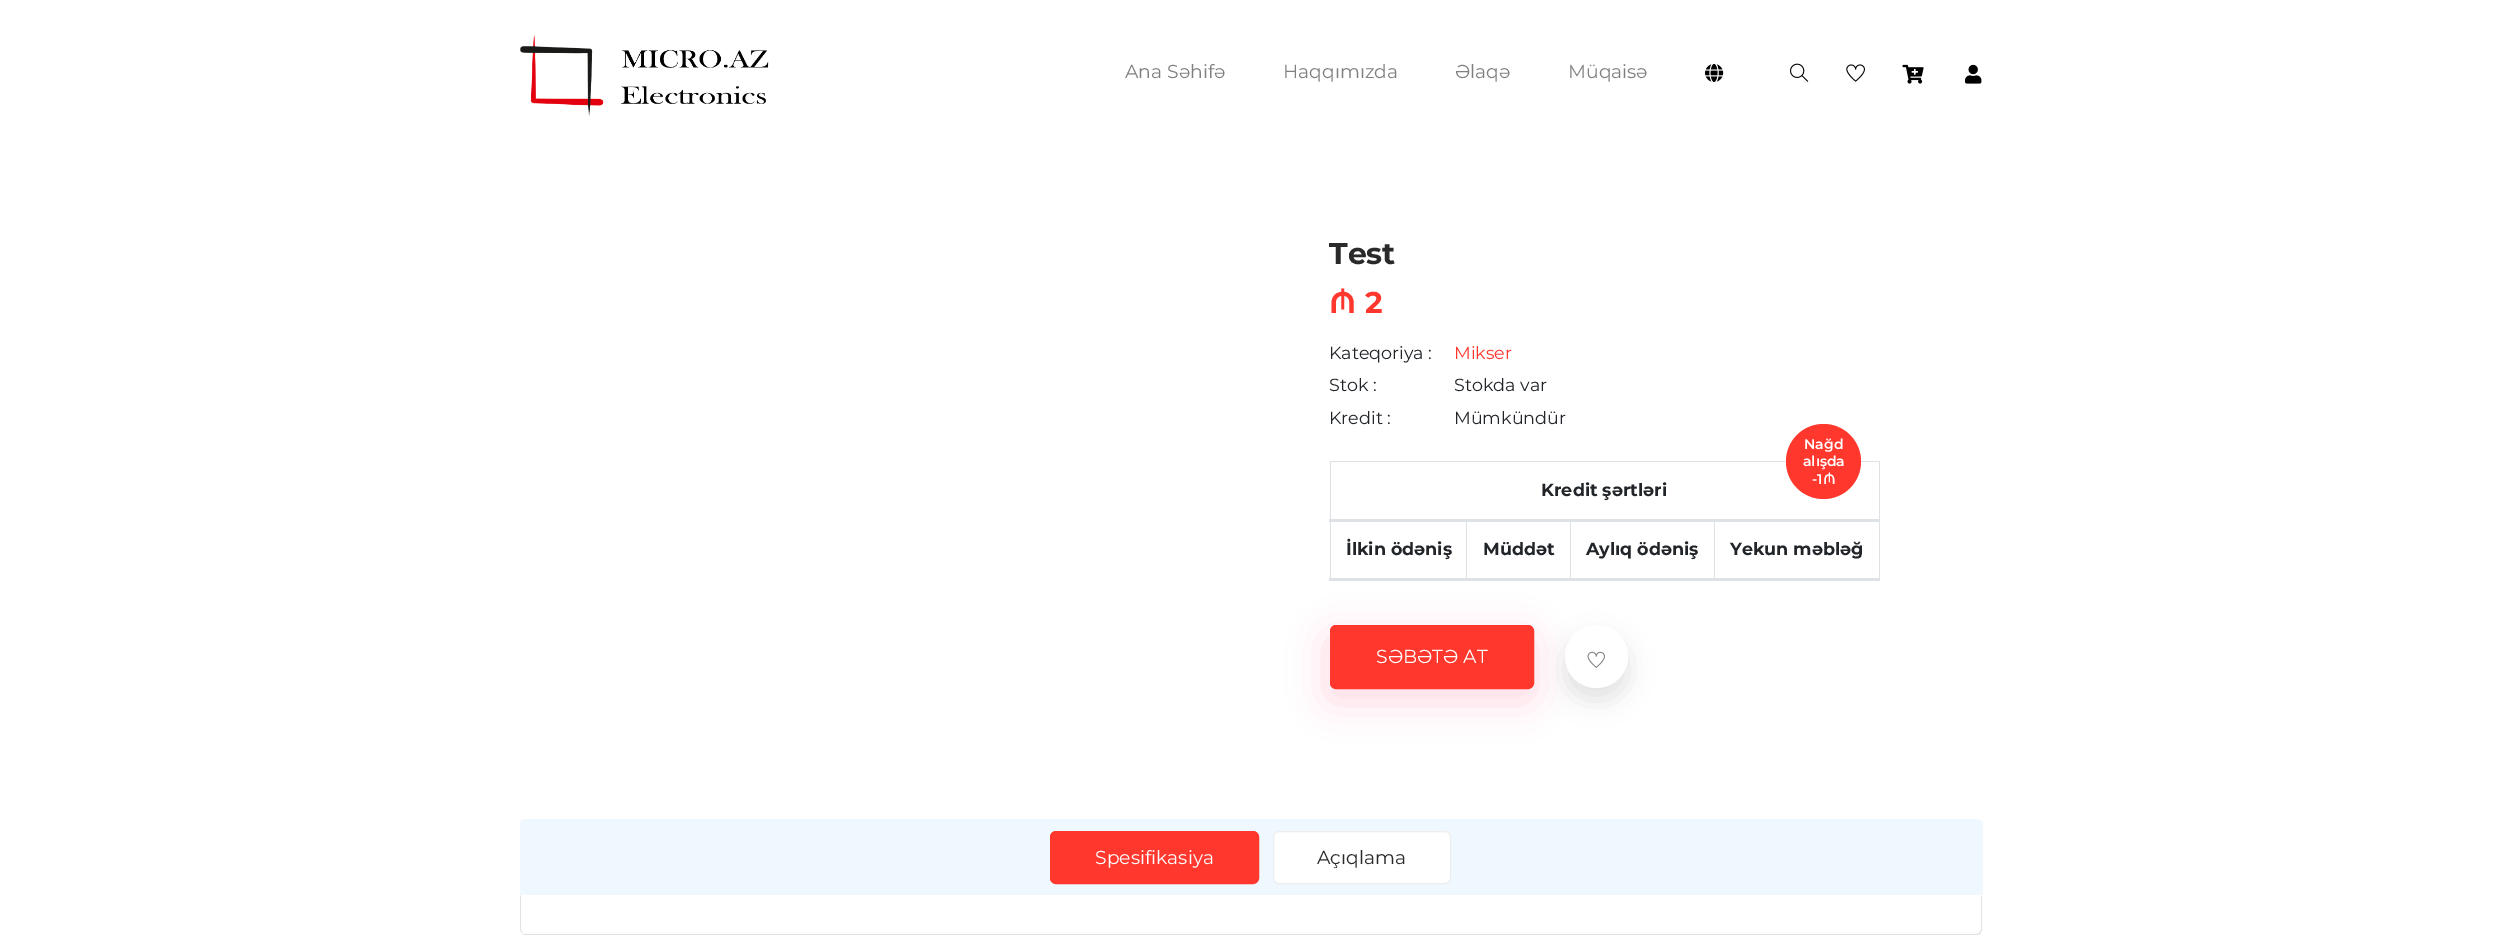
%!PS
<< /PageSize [2501 935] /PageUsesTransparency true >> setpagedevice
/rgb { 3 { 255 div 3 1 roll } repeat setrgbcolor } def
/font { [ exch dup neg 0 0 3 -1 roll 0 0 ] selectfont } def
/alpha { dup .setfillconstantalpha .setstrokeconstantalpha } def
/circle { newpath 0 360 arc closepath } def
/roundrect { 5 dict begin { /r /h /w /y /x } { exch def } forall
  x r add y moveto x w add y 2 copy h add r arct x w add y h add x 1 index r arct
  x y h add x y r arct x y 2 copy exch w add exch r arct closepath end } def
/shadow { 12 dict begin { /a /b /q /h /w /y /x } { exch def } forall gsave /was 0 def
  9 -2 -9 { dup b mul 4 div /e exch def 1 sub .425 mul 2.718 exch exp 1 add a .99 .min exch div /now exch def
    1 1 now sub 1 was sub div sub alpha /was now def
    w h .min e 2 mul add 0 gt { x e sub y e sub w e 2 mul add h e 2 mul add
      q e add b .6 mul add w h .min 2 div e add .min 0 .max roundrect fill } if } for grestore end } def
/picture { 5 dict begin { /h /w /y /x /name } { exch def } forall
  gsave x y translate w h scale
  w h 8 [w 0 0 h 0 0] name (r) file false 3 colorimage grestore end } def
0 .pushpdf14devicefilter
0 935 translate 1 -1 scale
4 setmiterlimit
255 255 255 rgb
0 0 2501 935 rectfill
(img/1.rgb) 520 35 249 81 picture
(img/2.rgb) 1705 63 19 19 picture
(img/3.rgb) 1790 63 19 19 picture
(img/4.rgb) 1846 64 19 18 picture
(img/5.rgb) 1902 64 22 20 picture
(img/6.rgb) 1965 64 17 20 picture
222 226 230 rgb
1330 461 550 1 rectfill
255 55 45 rgb
1823.5 461.5 37.5 circle fill
222 226 230 rgb
1879 461 1 119 rectfill
255 51 104 rgb
1325 634 210 69 9 18.5 0.18 shadow
[
  [1330 461 1 119 222 226 230]
  [1466 520 1 60 222 226 230]
  [1570 520 1 60 222 226 230]
  [1714 520 1 60 222 226 230]
  [1329 519 551 3 222 226 230]
  [1329 578 551 3 222 226 230]
] { aload pop rgb rectfill } forall
255 55 45 rgb
1330.5 625.5 203 63 5.5 roundrect gsave fill grestore
stroke
153 153 153 rgb
1565 638 63 62 31 12.5 0.3 shadow
255 255 255 rgb
1596.5 656.5 31.5 circle fill
(img/7.rgb) 1587 651 18 17 picture
240 248 255 rgb
526 819 moveto 1977 819 lineto 1980.5 819 1983 821.5 1983 825 curveto 1983 895 lineto 520 895 lineto 520 825 lineto 520 821.5 522.5 819 526 819 curveto closepath fill
255 55 45 rgb
1050.5 831.5 208 52 5.5 roundrect gsave fill grestore
stroke
255 255 255 rgb
1273.5 831.5 177 52 5.5 roundrect gsave fill grestore
238 238 238 rgb
stroke
226 226 226 rgb
1982 895.5 moveto 1982 929 lineto 1982 930.5 1981.5 932 1980.5 933 curveto 1980 932.5 lineto 1980.5 931.5 1981 930.5 1981 929 curveto 1981 896.5 lineto closepath fill
526 935 moveto 1976 935 lineto 1978 935 1980 934 1981 933 curveto 1980 932 lineto 1979 933 1978 934 1976 934 curveto 526 934 lineto 524 934 523 934 522 933 curveto 523 934 524 935 526 935 curveto closepath fill
521 896 moveto 520 895 lineto 520 929 lineto 520 930.5 521 932 522 933 curveto 522.5 932.5 lineto 521.5 932 521 930.5 521 929 curveto closepath fill
/Montserrat-Regular 18.75 font
128 128 128 rgb
[
  [(Ana Səhifə) 1125 78]
  [(Haqqımızda) 1283 78]
  [(Əlaqə) 1455 78]
  [(Müqaisə) 1568 78]
] { aload pop moveto show } forall
/Montserrat-Bold 30 font
42 42 42 rgb
1329 264 moveto (Test) show
255 55 45 rgb
1329 313 moveto (₼ 2) show
/Montserrat-Regular 17.5 font
33 37 41 rgb
1329 359 moveto (Kateqoriya :) show
255 55 45 rgb
1454 359 moveto (Mikser) show
33 37 41 rgb
[
  [(Stok :) 1329 391]
  [(Stokda var) 1454 391]
  [(Kredit :) 1329 424]
  [(Mümkündür) 1454 424]
] { aload pop moveto show } forall
/Montserrat-SemiBold 14 font
255 255 255 rgb
[
  [(Nağd) 1804 449]
  [(alışda) 1803 466]
  [(-1₼) 1812 484]
] { aload pop moveto show } forall
/Montserrat-Bold 17.5 font
33 37 41 rgb
[
  [(Kredit şərtləri) 1541 496]
  [(İlkin ödəniş) 1346 555]
  [(Müddət) 1483 555]
  [(Aylıq ödəniş) 1586 555]
  [(Yekun məbləğ) 1730 555]
] { aload pop moveto show } forall
/Montserrat-Regular 18.75 font
255 255 255 rgb
1376 663 moveto (SƏBƏTƏ AT) show
1095 864 moveto (Spesifikasiya) show
42 42 42 rgb
1317 864 moveto (Açıqlama) show
.poppdf14devicefilter showpage
